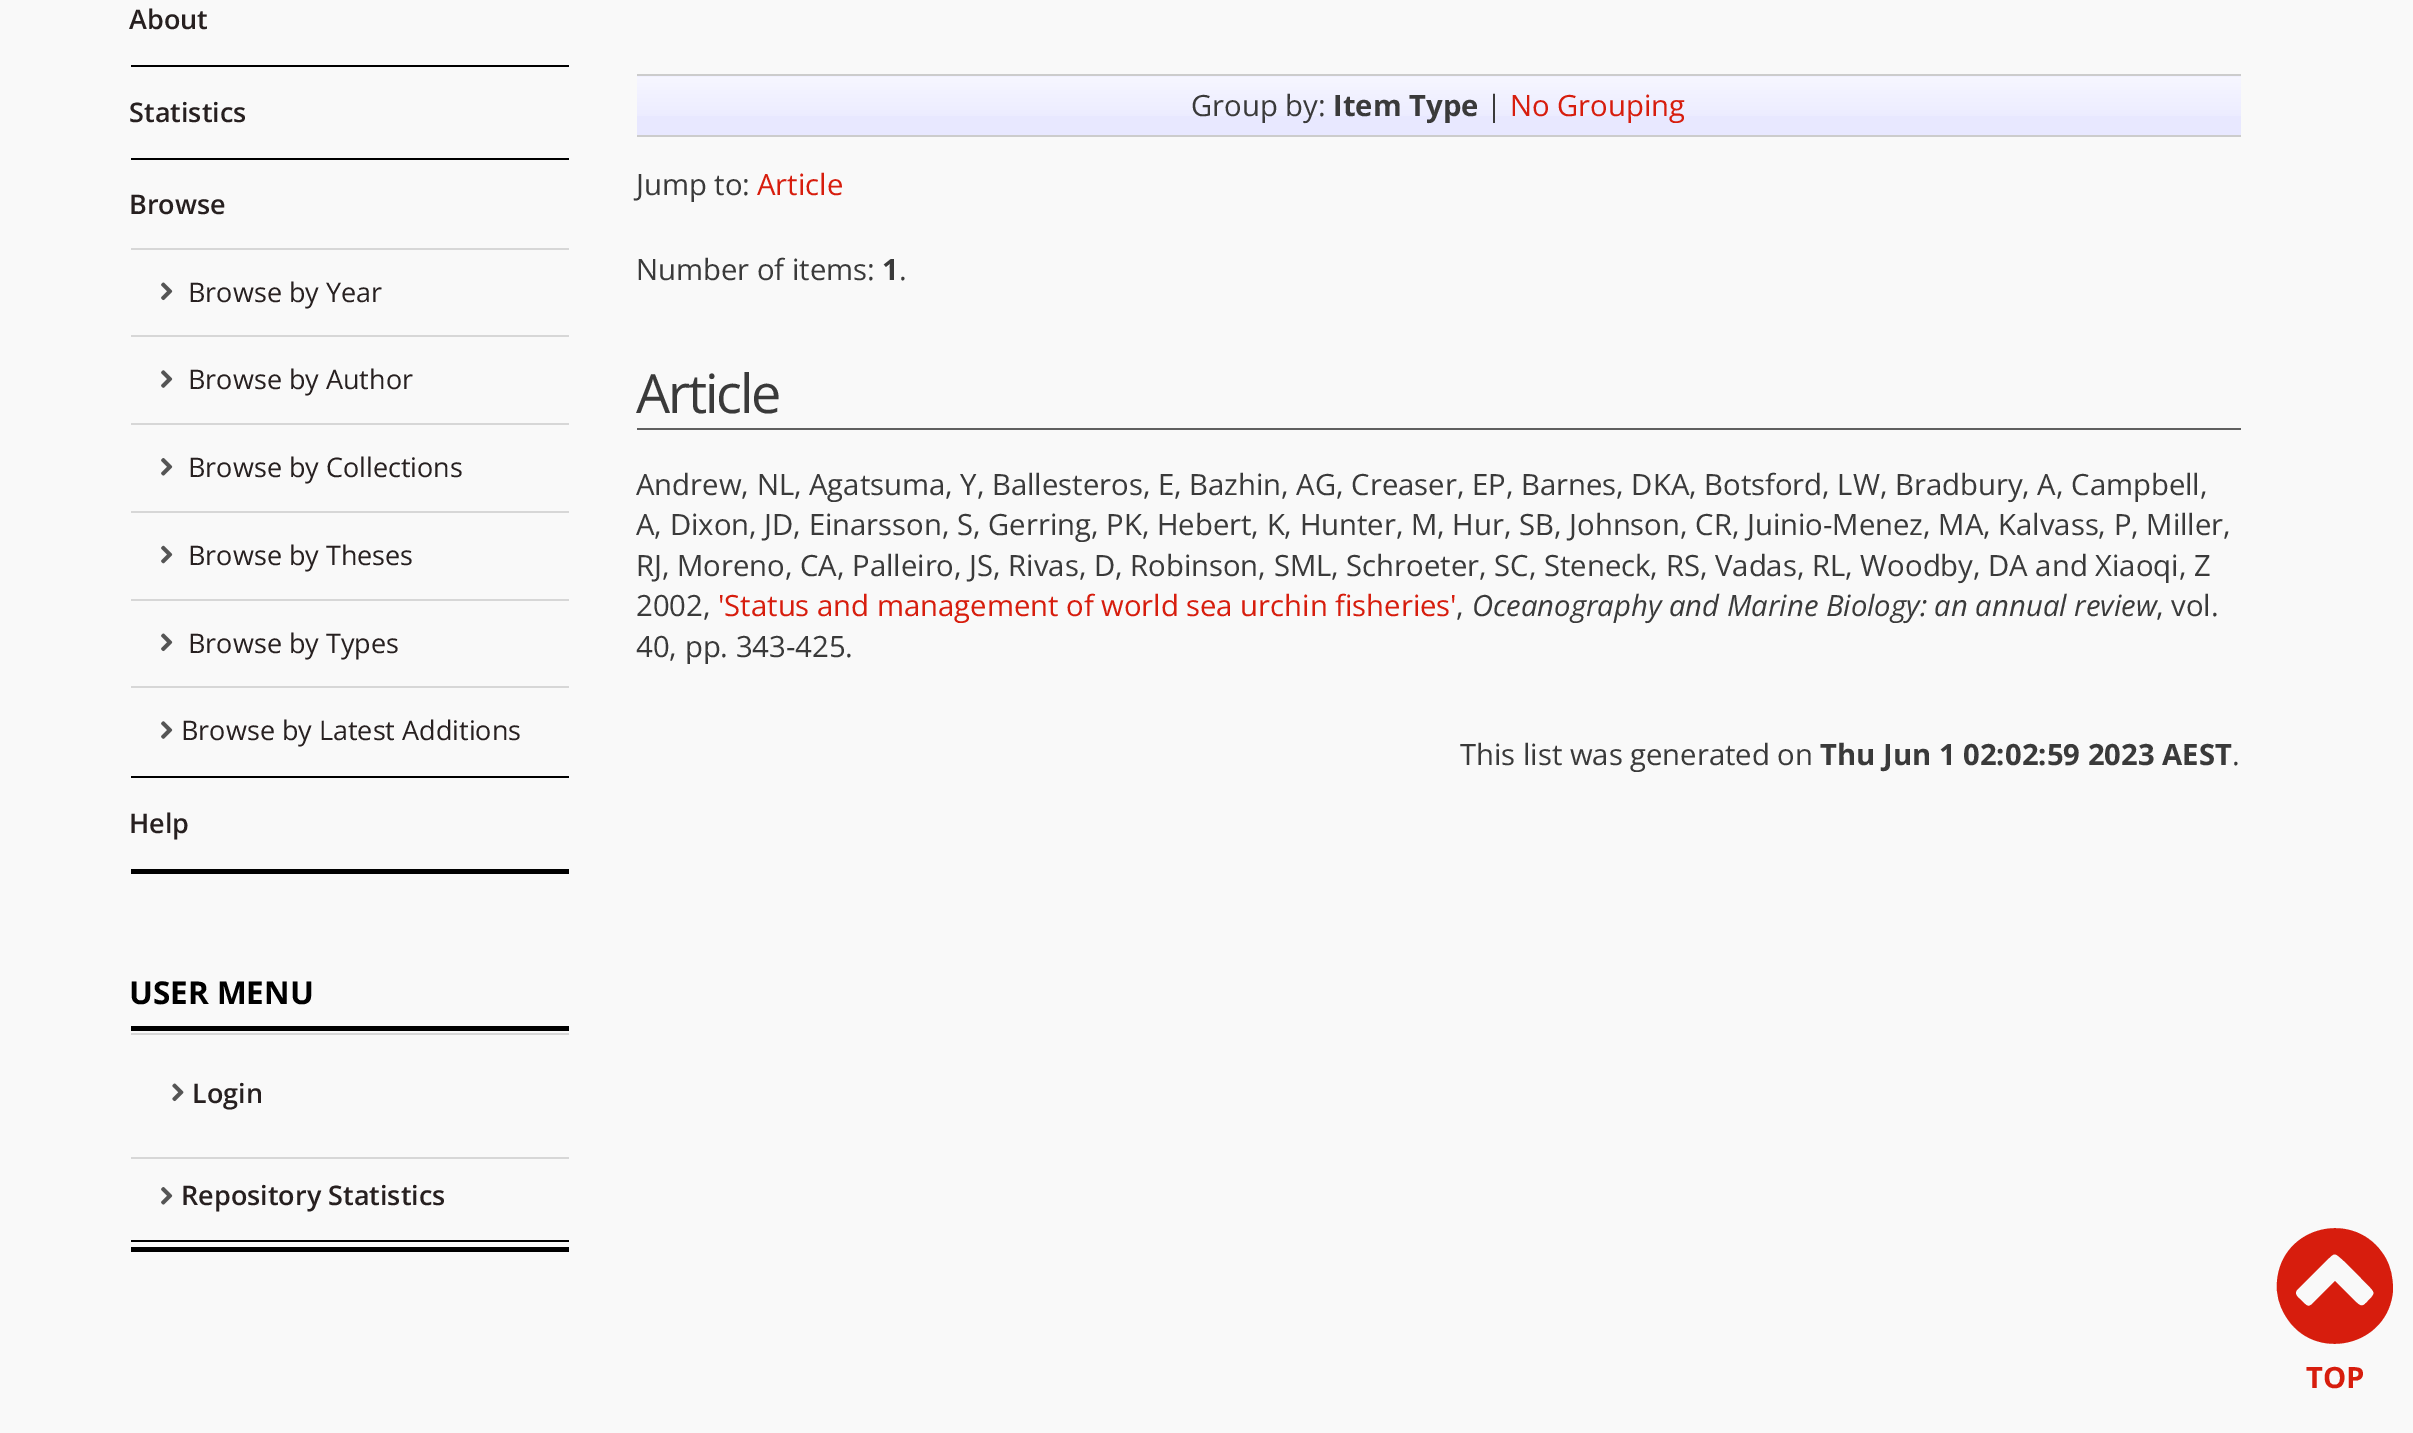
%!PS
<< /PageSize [2413 1433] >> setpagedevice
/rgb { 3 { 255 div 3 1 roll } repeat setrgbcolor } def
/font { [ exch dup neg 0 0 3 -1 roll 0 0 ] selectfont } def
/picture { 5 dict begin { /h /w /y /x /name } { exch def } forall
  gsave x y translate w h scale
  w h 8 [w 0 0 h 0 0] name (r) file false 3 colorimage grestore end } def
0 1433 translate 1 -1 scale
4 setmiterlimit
249 249 249 rgb
0 0 2413 1433 rectfill
[
  [131 65 438 2 0 0 0]
  [131 158 438 2 0 0 0]
  [131 776 438 2 0 0 0]
  [131 248 438 2 215 215 215]
] { aload pop rgb rectfill } forall
(img/1.rgb) 161 282 12 19 picture
131 335 438 2 rectfill
(img/2.rgb) 161 370 12 18 picture
131 423 438 2 rectfill
(img/3.rgb) 161 458 12 18 picture
131 511 438 2 rectfill
(img/4.rgb) 161 545 12 19 picture
131 599 438 2 rectfill
(img/1.rgb) 161 633 12 19 picture
131 686 438 2 rectfill
(img/2.rgb) 161 721 12 18 picture
[
  [131 869 438 5 0 0 0]
  [131 1026 438 5 0 0 0]
  [131 1240 438 2 0 0 0]
  [131 1033 438 2 215 215 215]
] { aload pop rgb rectfill } forall
(img/5.rgb) 172 1083 12 19 picture
131 1157 438 2 rectfill
(img/3.rgb) 161 1187 12 18 picture
0 0 0 rgb
131 1247 438 5 rectfill
232 232 255 rgb
637 76 1604 59 rectfill
(img/6.rgb) 637 76 1604 40 picture
[
  [637 74 1604 2 204 204 204]
  [637 135 1604 2 204 204 204]
  [637 428 1604 2 96 96 96]
] { aload pop rgb rectfill } forall
215 29 13 rgb
2365 1304 moveto 2378 1291 2376 1294 2361 1278 curveto 2344 1261 lineto 2334 1252 2335 1252 2326 1261 curveto 2297 1290 lineto 2294 1293 2297 1297 2300 1299 curveto 2308 1307 2308 1309 2316 1300 curveto 2335 1281 lineto 2354 1300 lineto 2357 1303 2361 1308 2365 1304 curveto closepath 2385 1257 moveto 2391 1267 2393 1278 2393 1290 curveto 2389 1347 2313 1364 2285 1315 curveto 2279 1305 2276 1294 2277 1282 curveto 2281 1225 2356 1208 2385 1257 curveto closepath fill
/OpenSans-SemiBold 27 font
39 32 32 rgb
[
  [(About) 129 29]
  [(Statistics) 129 122]
  [(Browse) 129 214]
] { aload pop moveto show } forall
/OpenSans-Regular 27 font
[
  [(Browse by Year) 188 302]
  [(Browse by Author) 188 389]
  [(Browse by Collections) 188 477]
  [(Browse by Theses) 188 565]
  [(Browse by Types) 188 653]
  [(Browse by Latest Additions) 181 740]
] { aload pop moveto show } forall
/OpenSans-SemiBold 27 font
129 833 moveto (Help) show
/OpenSans-Bold 31.5 font
0 0 0 rgb
129 1004 moveto (USER MENU) show
/OpenSans-SemiBold 27 font
39 32 32 rgb
192 1103 moveto (Login) show
181 1205 moveto (Repository Statistics) show
/OpenSans-Regular 29.25 font
58 58 58 rgb
1191 116 moveto (Group by:) show
/OpenSans-Bold 29.25 font
1333 116 moveto (Item Type) show
/OpenSans-Regular 29.25 font
1486 116 moveto (|) show
215 29 13 rgb
1510 116 moveto (No Grouping) show
58 58 58 rgb
636 195 moveto (Jump to:) show
215 29 13 rgb
757 195 moveto (Article) show
58 58 58 rgb
636 280 moveto (Number of items:) show
/OpenSans-Bold 29.25 font
882 280 moveto (1) show
/OpenSans-Regular 29.25 font
899 280 moveto (.) show
/OpenSans-Regular 54 font
636 413 moveto -2.25 0 (Article) ashow
/OpenSans-Regular 29.25 font
[
  [(Andrew, NL, Agatsuma, Y, Ballesteros, E, Bazhin, AG, Creaser, EP, Barnes, DKA, Botsford, LW, Bradbury, A, Campbell,) 636 495]
  [(A, Dixon, JD, Einarsson, S, Gerring, PK, Hebert, K, Hunter, M, Hur, SB, Johnson, CR, Juinio-Menez, MA, Kalvass, P, Miller,) 636 535]
  [(RJ, Moreno, CA, Palleiro, JS, Rivas, D, Robinson, SML, Schroeter, SC, Steneck, RS, Vadas, RL, Woodby, DA and Xiaoqi, Z) 636 576]
  [(2002,) 636 616]
] { aload pop moveto show } forall
215 29 13 rgb
718 616 moveto ('Status and management of world sea urchin fisheries') show
58 58 58 rgb
1456 616 moveto (,) show
/OpenSans-Italic 29.25 font
1472 616 moveto (Oceanography and Marine Biology: an annual review) show
/OpenSans-Regular 29.25 font
[
  [(, vol.) 2156 616]
  [(40, pp. 343-425.) 636 657]
  [(This list was generated on) 1460 765]
] { aload pop moveto show } forall
/OpenSans-Bold 29.25 font
1820 765 moveto (Thu Jun 1 02:02:59 2023 AEST) show
/OpenSans-Regular 29.25 font
2232 765 moveto (.) show
/OpenSans-Bold 29.25 font
215 29 13 rgb
2306 1388 moveto (TOP) show
showpage
